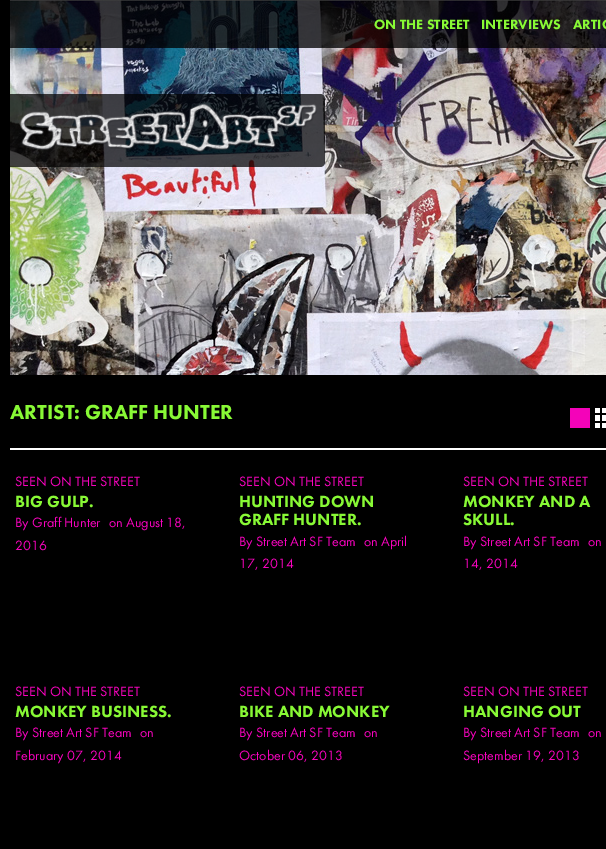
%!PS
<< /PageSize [606 849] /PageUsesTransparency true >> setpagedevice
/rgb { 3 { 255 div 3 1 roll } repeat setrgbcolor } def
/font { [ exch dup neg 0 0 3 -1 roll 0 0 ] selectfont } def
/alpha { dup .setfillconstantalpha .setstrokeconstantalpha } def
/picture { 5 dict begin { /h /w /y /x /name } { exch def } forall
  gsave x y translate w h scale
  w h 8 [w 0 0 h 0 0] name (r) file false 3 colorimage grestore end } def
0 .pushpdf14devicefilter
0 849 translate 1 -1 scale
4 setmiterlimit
0 0 0 rgb
0 0 606 849 rectfill
(img/1.rgb) 10 0 596 375 picture
0.72 alpha
10 94 moveto 320 94 lineto 323 94 325 96 325 99 curveto 325 162 lineto 325 165 323 167 320 167 curveto 10 167 lineto closepath fill
1 alpha
(img/2.rgb) 20 103 297 49 picture
0.76 alpha
[
  [10 0 596 48 0 0 0]
] { aload pop rgb rectfill } forall
1 alpha
[
  [10 448 596 2 255 255 255]
  [570 408 20 20 244 3 185]
] { aload pop rgb rectfill } forall
(img/3.rgb) 595 408 11 20 picture
/FuturaPT-Black 14 font
136 249 53 rgb
[
  [(ON THE STREET) 374 29]
  [(INTERVIEWS) 481 29]
  [(ARTIC) 573 29]
] { aload pop moveto show } forall
/FuturaPT-Black 21 font
10 419 moveto (ARTIST: GRAFF HUNTER) show
/FuturaPT-Regular 14 font
248 3 190 rgb
15 486 moveto (SEEN ON THE STREET) show
/FuturaPT-Black 16.75 font
136 249 53 rgb
15 507 moveto (BIG GULP.) show
/FuturaPT-Regular 14 font
248 3 190 rgb
[
  [(By Graff Hunter) 15 527]
  [(on August 18,) 109 527]
  [(2016) 15 550]
  [(SEEN ON THE STREET) 239 486]
] { aload pop moveto show } forall
/FuturaPT-Black 16.75 font
136 249 53 rgb
239 507 moveto (HUNTING DOWN) show
239 525 moveto (GRAFF HUNTER.) show
/FuturaPT-Regular 14 font
248 3 190 rgb
[
  [(By Street Art SF Team) 239 546]
  [(on April) 364 546]
  [(17, 2014) 239 568]
  [(SEEN ON THE STREET) 463 486]
] { aload pop moveto show } forall
/FuturaPT-Black 16.75 font
136 249 53 rgb
463 507 moveto (MONKEY AND A) show
463 525 moveto (SKULL.) show
/FuturaPT-Regular 14 font
248 3 190 rgb
[
  [(By Street Art SF Team) 463 546]
  [(on) 588 546]
  [(14, 2014) 463 568]
  [(SEEN ON THE STREET) 15 696]
] { aload pop moveto show } forall
/FuturaPT-Black 16.75 font
136 249 53 rgb
15 717 moveto (MONKEY BUSINESS.) show
/FuturaPT-Regular 14 font
248 3 190 rgb
[
  [(By Street Art SF Team) 15 737]
  [(on) 140 737]
  [(February 07, 2014) 15 760]
  [(SEEN ON THE STREET) 239 696]
] { aload pop moveto show } forall
/FuturaPT-Black 16.75 font
136 249 53 rgb
239 717 moveto (BIKE AND MONKEY) show
/FuturaPT-Regular 14 font
248 3 190 rgb
[
  [(By Street Art SF Team) 239 737]
  [(on) 364 737]
  [(October 06, 2013) 239 760]
  [(SEEN ON THE STREET) 463 696]
] { aload pop moveto show } forall
/FuturaPT-Black 16.75 font
136 249 53 rgb
463 717 moveto (HANGING OUT) show
/FuturaPT-Regular 14 font
248 3 190 rgb
[
  [(By Street Art SF Team) 463 737]
  [(on) 588 737]
  [(September 19, 2013) 463 760]
] { aload pop moveto show } forall
.poppdf14devicefilter showpage
